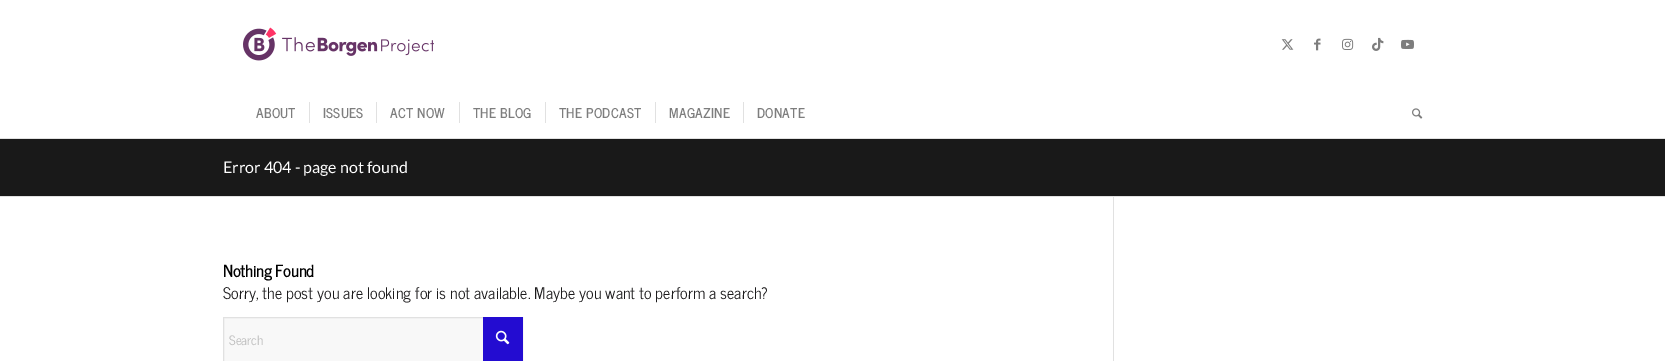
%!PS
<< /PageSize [1665 361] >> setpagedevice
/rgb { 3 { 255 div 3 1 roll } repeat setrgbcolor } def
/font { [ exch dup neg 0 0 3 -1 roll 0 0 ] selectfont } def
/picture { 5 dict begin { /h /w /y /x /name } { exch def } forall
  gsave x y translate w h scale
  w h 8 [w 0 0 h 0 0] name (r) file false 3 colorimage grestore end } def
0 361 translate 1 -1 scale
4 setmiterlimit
255 255 255 rgb
0 0 1665 361 rectfill
225 225 225 rgb
0 138 1665 1 rectfill
(img/1.rgb) 243 27 191 34 picture
(img/2.rgb) 1281 39 13 11 picture
(img/3.rgb) 1314 38 7 13 picture
(img/4.rgb) 1342 38 12 12 picture
(img/5.rgb) 1372 37 12 14 picture
(img/6.rgb) 1401 39 13 10 picture
[
  [309 102 1 21 225 225 225]
  [376 102 1 21 225 225 225]
  [459 102 1 21 225 225 225]
  [545 102 1 21 225 225 225]
  [655 102 1 21 225 225 225]
  [743 102 1 21 225 225 225]
] { aload pop rgb rectfill } forall
(img/7.rgb) 1412 108 11 11 picture
[
  [0 139 1665 57 25 25 25]
  [0 196 1665 1 225 225 225]
  [1113 197 1 164 225 225 225]
  [224 318 259 43 248 248 248]
] { aload pop rgb rectfill } forall
225 225 225 rgb
223.5 317.5 299 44 rectstroke
35 12 209 rgb
483 317 40 44 rectfill
(img/8.rgb) 495 330 15 15 picture
/NewsCycle-Bold 13 font
125 125 125 rgb
256 118 moveto 0.6 0 (ABOUT) ashow
323 118 moveto 0.6 0 (ISSUES) ashow
390 118 moveto 0.6 0 (ACT NOW) ashow
473 118 moveto 0.6 0 (THE BLOG) ashow
559 118 moveto 0.6 0 (THE PODCAST) ashow
669 118 moveto 0.6 0 (MAGAZINE) ashow
757 118 moveto 0.6 0 (DONATE) ashow
/Lato-Regular 16 font
255 255 255 rgb
223 173 moveto (Error 404 - page not found) show
/NewsCycle-Bold 16 font
0 0 0 rgb
223 277 moveto (Nothing Found) show
/NewsCycle-Regular 16 font
28 27 28 rgb
223 299 moveto (Sorry, the post you are looking for is not available. Maybe you want to perform a search?) show
/NewsCycle-Regular 13 font
187 187 187 rgb
229 345 moveto (Search) show
showpage
